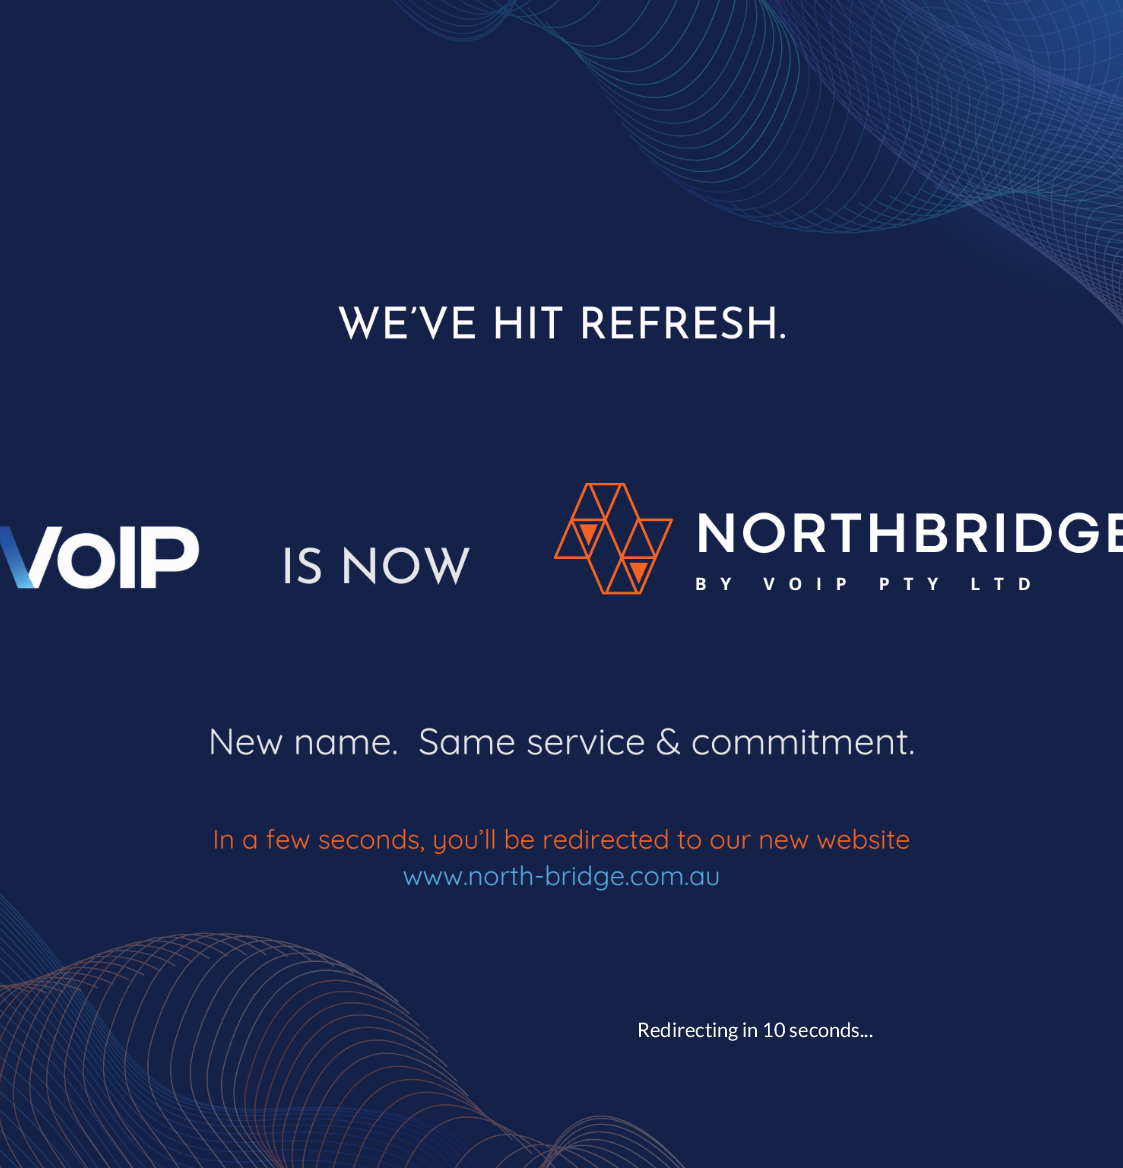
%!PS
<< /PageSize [1123 1168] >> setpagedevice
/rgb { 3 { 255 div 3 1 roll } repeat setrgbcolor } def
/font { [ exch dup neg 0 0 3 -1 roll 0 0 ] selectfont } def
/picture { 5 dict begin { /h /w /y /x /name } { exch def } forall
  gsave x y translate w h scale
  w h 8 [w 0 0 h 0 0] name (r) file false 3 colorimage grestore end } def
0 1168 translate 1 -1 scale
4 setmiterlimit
255 255 255 rgb
0 0 1123 1168 rectfill
(img/1.rgb) 0 0 1123 1168 picture
/Lato-Regular 20 font
637 1037 moveto (Redirecting in 10 seconds...) show
showpage
